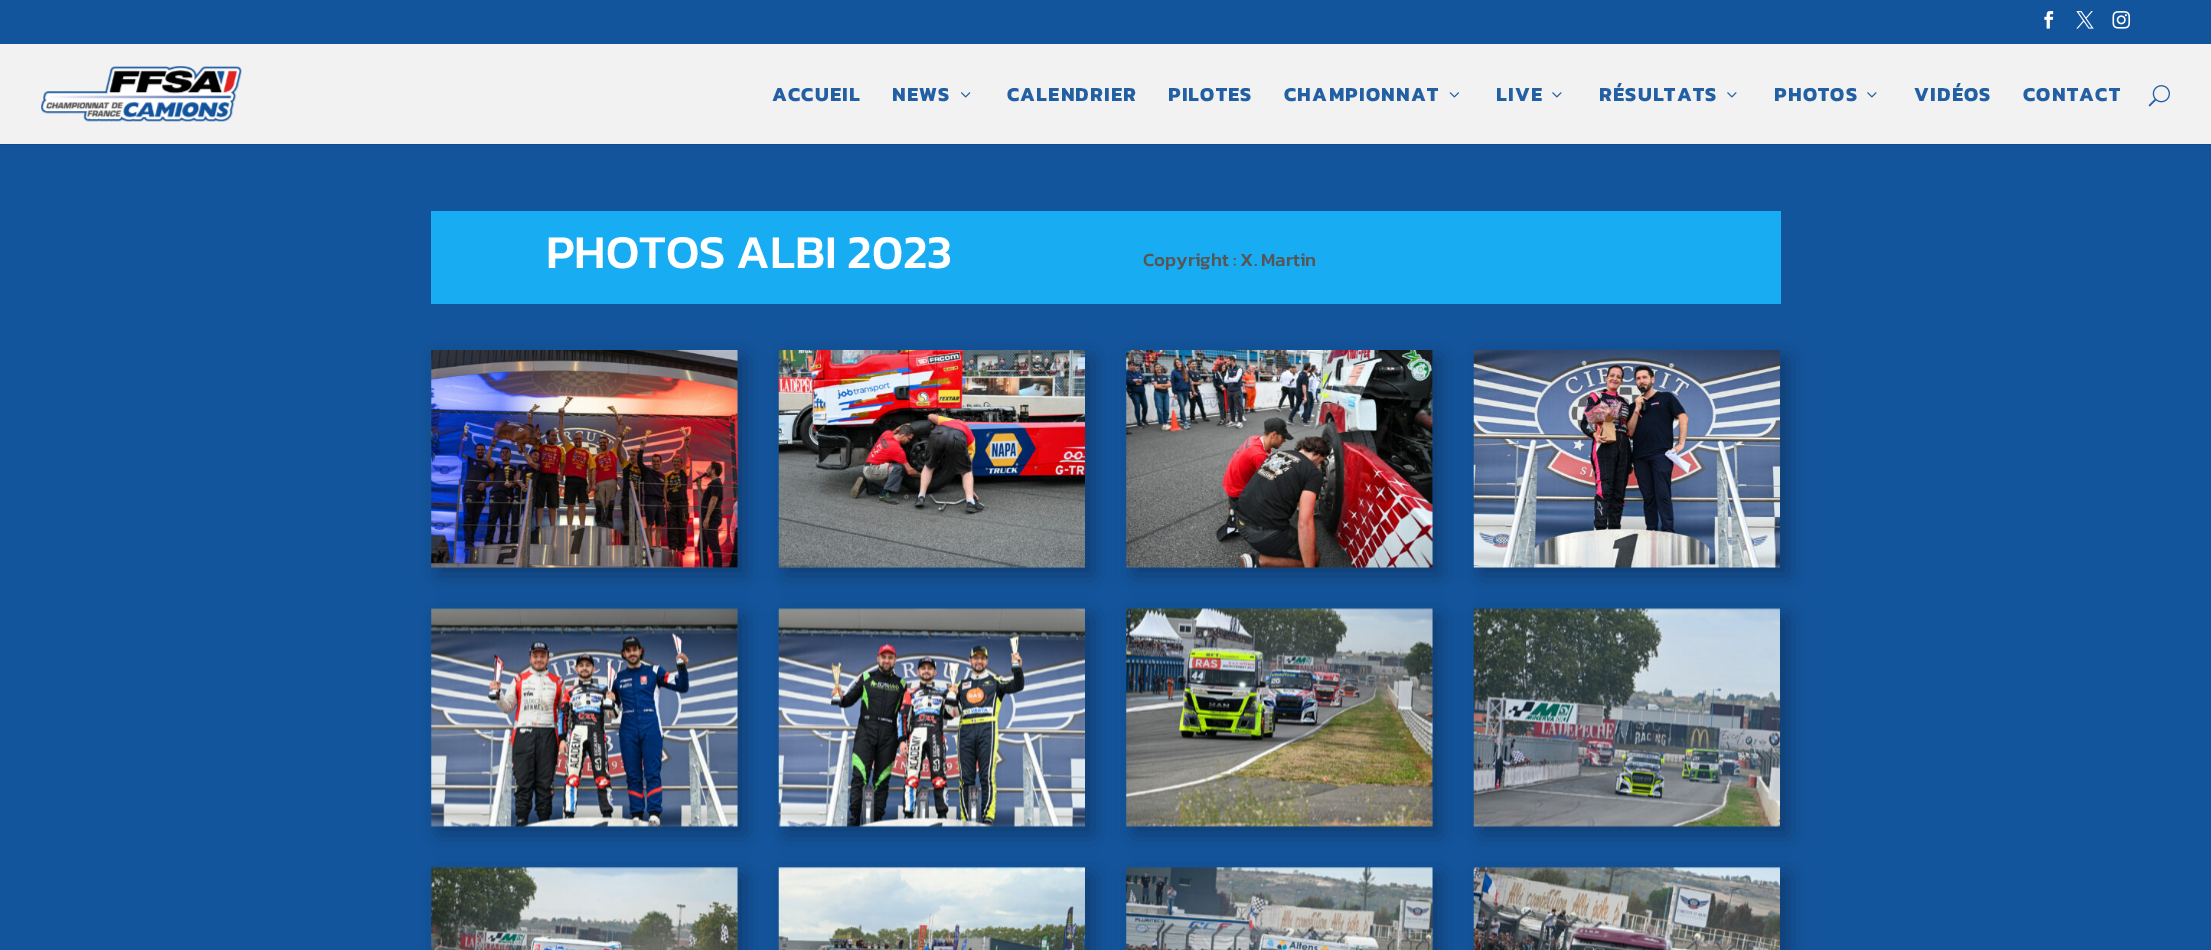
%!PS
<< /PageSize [2211 950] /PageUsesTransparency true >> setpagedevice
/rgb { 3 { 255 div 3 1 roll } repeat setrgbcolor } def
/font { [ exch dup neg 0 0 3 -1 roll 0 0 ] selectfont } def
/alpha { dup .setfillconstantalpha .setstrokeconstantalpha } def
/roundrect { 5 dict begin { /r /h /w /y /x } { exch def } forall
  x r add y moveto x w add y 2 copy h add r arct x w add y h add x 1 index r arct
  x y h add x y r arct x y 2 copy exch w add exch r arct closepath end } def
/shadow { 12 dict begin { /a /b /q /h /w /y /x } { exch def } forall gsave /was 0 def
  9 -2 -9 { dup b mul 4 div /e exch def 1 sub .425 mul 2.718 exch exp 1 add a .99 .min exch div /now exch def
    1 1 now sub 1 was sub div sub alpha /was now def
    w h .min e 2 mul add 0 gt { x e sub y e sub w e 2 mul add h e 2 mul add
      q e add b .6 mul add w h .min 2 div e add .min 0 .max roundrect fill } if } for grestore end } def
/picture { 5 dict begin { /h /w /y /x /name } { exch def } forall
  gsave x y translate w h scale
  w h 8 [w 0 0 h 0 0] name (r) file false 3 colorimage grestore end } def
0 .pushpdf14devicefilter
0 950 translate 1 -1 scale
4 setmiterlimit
19 85 157 rgb
0 0 2211 950 rectfill
(img/1.rgb) 2044 11 10 18 picture
(img/2.rgb) 2076 11 18 18 picture
(img/3.rgb) 2112 11 18 18 picture
17 77 141 rgb
0 144 2211 1 rectfill
242 242 242 rgb
0 44 2211 100 rectfill
(img/4.rgb) 41 66 201 56 picture
(img/5.rgb) 961 92 10 6 picture
(img/6.rgb) 1449 92 10 6 picture
(img/7.rgb) 1552 92 10 6 picture
(img/7.rgb) 1727 92 10 6 picture
(img/7.rgb) 1867 92 10 6 picture
(img/8.rgb) 2148 85 22 22 picture
24 173 242 rgb
431 211 1350 93 rectfill
0 0 0 rgb
439 358 306 217 0 11 0.3 shadow
(img/9.rgb) 431 350 307 218 picture
786 358 307 217 0 11 0.3 shadow
(img/10.rgb) 778 350 307 218 picture
1134 358 306 217 0 11 0.3 shadow
(img/11.rgb) 1126 350 307 218 picture
1481 358 307 217 0 11 0.3 shadow
(img/12.rgb) 1473 350 307 218 picture
439 616 306 218 0 11 0.3 shadow
(img/13.rgb) 431 608 307 219 picture
786 616 307 218 0 11 0.3 shadow
(img/14.rgb) 778 608 307 219 picture
1134 616 306 218 0 11 0.3 shadow
(img/15.rgb) 1126 608 307 219 picture
1481 616 307 218 0 11 0.3 shadow
(img/16.rgb) 1473 608 307 219 picture
439 875 306 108 0 11 0.3 shadow
(img/17.rgb) 431 867 307 83 picture
786 875 307 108 0 11 0.3 shadow
(img/18.rgb) 778 867 307 83 picture
1134 875 306 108 0 11 0.3 shadow
(img/19.rgb) 1126 867 307 83 picture
1481 875 307 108 0 11 0.3 shadow
(img/20.rgb) 1473 867 307 83 picture
/Kanit-Bold 20 font
35 96 163 rgb
772 101 moveto 1.25 0 (ACCUEIL) ashow
892 101 moveto 1.25 0 (NEWS) ashow
1007 101 moveto 1.25 0 (CALENDRIER) ashow
1168 101 moveto 1.25 0 (PILOTES) ashow
1284 101 moveto 1.25 0 (CHAMPIONNAT) ashow
1496 101 moveto 1.25 0 (LIVE) ashow
1599 101 moveto 1.25 0 (RÉSULTATS) ashow
1774 101 moveto 1.25 0 (PHOTOS) ashow
1914 101 moveto 1.25 0 (VIDÉOS) ashow
2023 101 moveto 1.25 0 (CONTACT) ashow
/Kanit-Medium 47.5 font
255 255 255 rgb
546 268 moveto (PHOTOS ALBI 2023) show
/Kanit-Medium 18.75 font
87 86 86 rgb
1143 266 moveto (Copyright : X. Martin) show
.poppdf14devicefilter showpage
